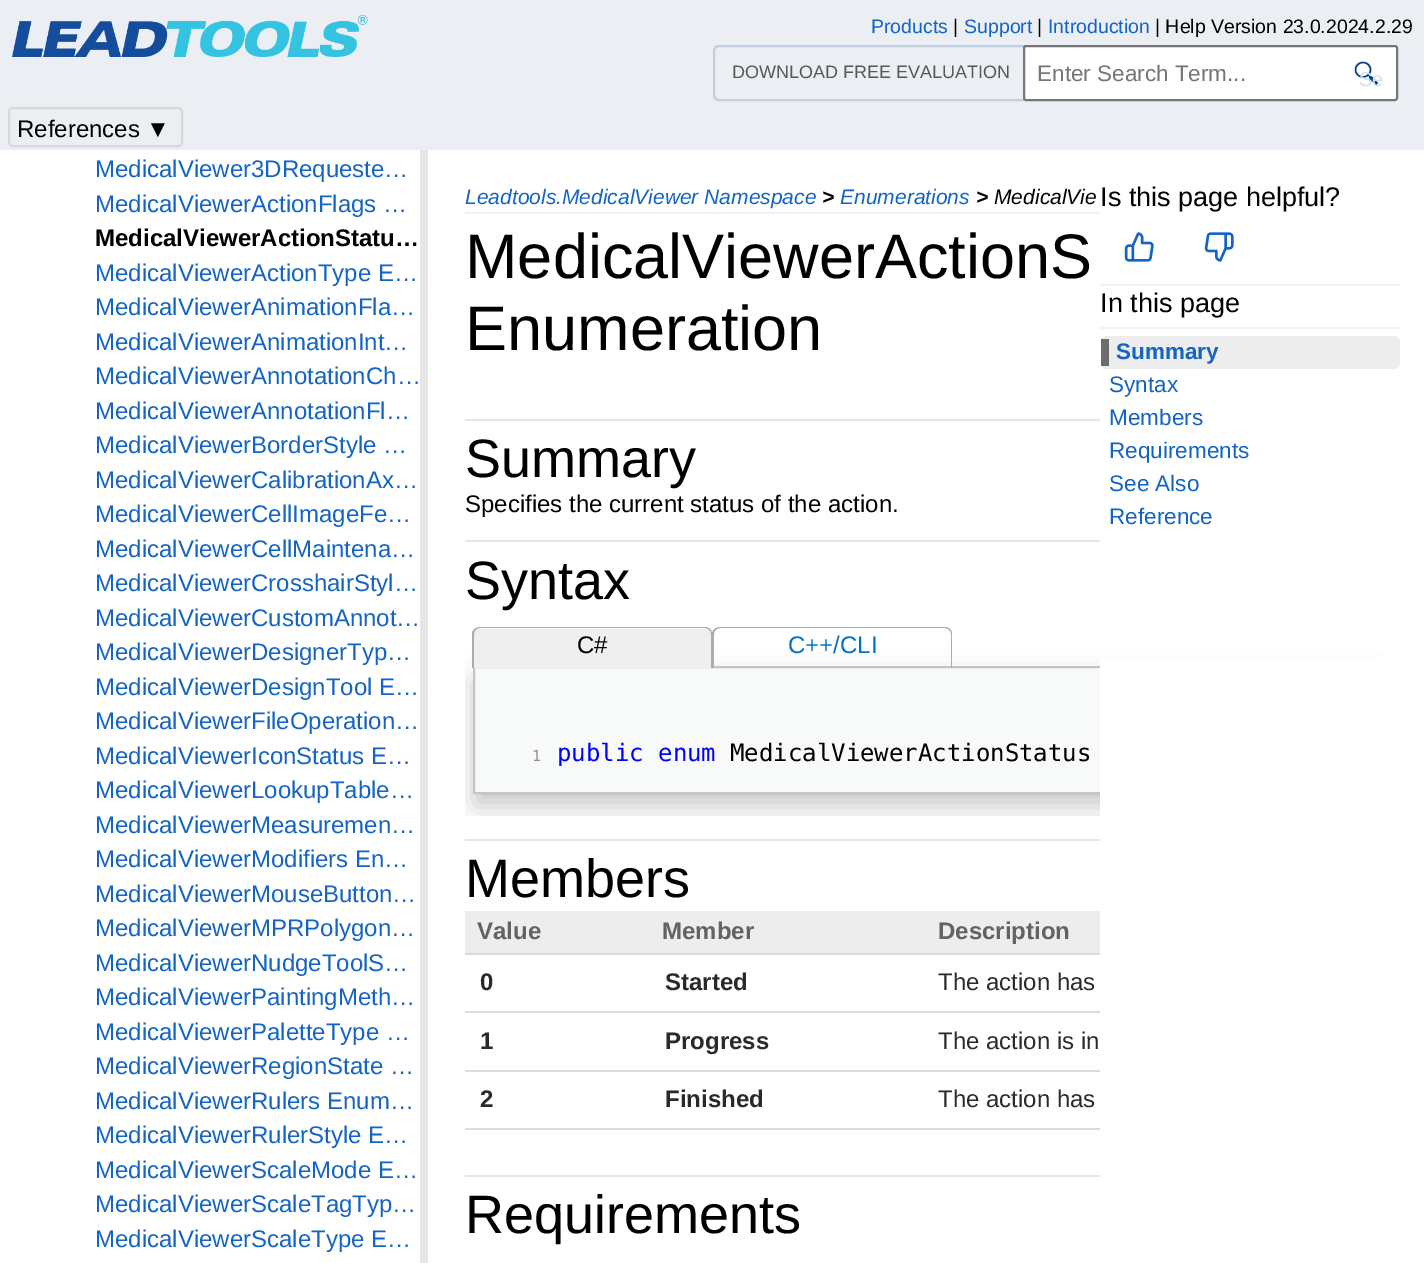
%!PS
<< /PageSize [1424 1263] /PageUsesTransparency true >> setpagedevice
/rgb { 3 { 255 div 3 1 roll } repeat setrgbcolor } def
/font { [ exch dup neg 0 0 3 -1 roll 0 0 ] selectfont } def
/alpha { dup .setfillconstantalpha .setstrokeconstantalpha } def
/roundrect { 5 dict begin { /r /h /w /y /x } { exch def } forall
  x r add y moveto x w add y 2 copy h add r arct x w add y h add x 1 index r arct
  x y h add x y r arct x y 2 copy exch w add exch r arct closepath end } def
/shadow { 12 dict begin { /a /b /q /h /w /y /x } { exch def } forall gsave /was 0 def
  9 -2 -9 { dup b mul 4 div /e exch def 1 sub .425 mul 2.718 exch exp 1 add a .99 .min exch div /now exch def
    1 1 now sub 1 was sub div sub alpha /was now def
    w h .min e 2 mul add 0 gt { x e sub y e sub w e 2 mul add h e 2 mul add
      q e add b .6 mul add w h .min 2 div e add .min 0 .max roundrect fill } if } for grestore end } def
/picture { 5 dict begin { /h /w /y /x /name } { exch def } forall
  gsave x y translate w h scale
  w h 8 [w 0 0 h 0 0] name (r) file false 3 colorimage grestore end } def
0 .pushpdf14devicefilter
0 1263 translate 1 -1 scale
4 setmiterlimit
255 255 255 rgb
0 0 1424 1263 rectfill
235 238 243 rgb
0 0 1424 150 rectfill
(img/1.rgb) 12 15 356 42 picture
192 206 225 rgb
2 setlinewidth
714 46 316 54 5 roundrect stroke
255 255 255 rgb
1024 46 373 54 2 roundrect gsave fill grestore
118 118 118 rgb
stroke
(img/2.rgb) 1354 61 24 24 picture
214 216 220 rgb
9 108 173 38 4 roundrect stroke
230 230 230 rgb
420 150 8 1113 rectfill
241 241 241 rgb
465 212 635 2 rectfill
gsave
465 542 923 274 rectclip
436 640 moveto 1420 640 lineto 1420 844 lineto 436 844 lineto closepath 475 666 moveto 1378 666 lineto 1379 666 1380 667 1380 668 curveto 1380 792 lineto 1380 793 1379 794 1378 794 curveto 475 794 lineto 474 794 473 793 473 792 curveto 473 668 lineto 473 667 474 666 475 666 curveto closepath eoclip newpath
0 0 0 rgb
473 677 910 130 4 12 0.2 shadow
grestore
0.4 alpha
238 239 240 rgb
473 666 907 128 2 roundrect fill
118 118 118 rgb
474 667 905 126 1 roundrect stroke
1 alpha
255 255 255 rgb
1100 657 288 159 rectfill
(img/3.rgb) 1124 232 30 30 picture
(img/4.rgb) 1204 232 30 30 picture
237 245 251 rgb
1100 284 300 2 rectfill
1100 327 300 2 rectfill
237 237 237 rgb
1101 336 299 33 6 roundrect fill
0.8 alpha
[
  [1101 339 8 27 77 77 77]
] { aload pop rgb rectfill } forall
1 alpha
[
  [465 419 635 2 230 230 230]
  [465 540 635 2 230 230 230]
] { aload pop rgb rectfill } forall
239 239 239 rgb
480 629 moveto 705 629 lineto 708.5 629 711 631.5 711 635 curveto 711 668 lineto 474 668 lineto 474 635 lineto 474 631.5 476.5 629 480 629 curveto closepath fill
176 170 170 rgb
480 627 moveto 705 627 lineto 709 627 712 630 712 634 curveto 712 668 lineto 472 668 lineto 472 634 lineto 472 630 476 627 480 627 curveto closepath 480 628 moveto 705 628 lineto 708 628 711 631 711 634 curveto 711 668 lineto 474 668 lineto 474 634 lineto 474 631 477 628 480 628 curveto closepath eofill
720 627 moveto 945 627 lineto 949 627 952 630 952 634 curveto 952 668 lineto 712 668 lineto 712 634 lineto 712 630 716 627 720 627 curveto closepath 720 628 moveto 945 628 lineto 948 628 951 631 951 634 curveto 951 668 lineto 714 668 lineto 714 634 lineto 714 631 717 628 720 628 curveto closepath eofill
[
  [465 839 635 2 230 230 230]
  [465 911 635 42 237 237 237]
  [465 953 635 2 219 219 219]
  [465 1011 635 2 219 219 219]
  [465 1070 635 2 219 219 219]
  [465 1128 635 2 219 219 219]
  [465 1175 635 2 230 230 230]
] { aload pop rgb rectfill } forall
/LiberationSans-Regular 19.5 font
19 100 196 rgb
871 33 moveto (Products) show
0 0 0 rgb
953 33 moveto (|) show
19 100 196 rgb
964 33 moveto (Support) show
0 0 0 rgb
1037 33 moveto (|) show
19 100 196 rgb
1048 33 moveto (Introduction) show
0 0 0 rgb
1155 33 moveto (| Help Version 23.0.2024.2.29) show
/LiberationSans-Regular 18 font
88 88 88 rgb
732 78 moveto (DOWNLOAD FREE EVALUATION) show
/LiberationSans-Regular 22.5 font
117 117 117 rgb
1037 81 moveto (Enter Search Term...) show
/LiberationSans-Regular 20 font
211 222 234 rgb
1359 86 moveto (Se) show
/LiberationSans-Regular 24 font
0 0 0 rgb
17 137 moveto (References ▼) show
19 100 196 rgb
95 177 moveto (MedicalViewer3DRequeste…) show
95 212 moveto (MedicalViewerActionFlags …) show
/LiberationSans-Bold 24 font
0 0 0 rgb
95 246 moveto (MedicalViewerActionStatu…) show
/LiberationSans-Regular 24 font
19 100 196 rgb
[
  [(MedicalViewerActionType E…) 95 281]
  [(MedicalViewerAnimationFla…) 95 315]
  [(MedicalViewerAnimationInt…) 95 350]
  [(MedicalViewerAnnotationCh…) 95 384]
  [(MedicalViewerAnnotationFl…) 95 419]
  [(MedicalViewerBorderStyle …) 95 453]
  [(MedicalViewerCalibrationAx…) 95 488]
  [(MedicalViewerCellImageFe…) 95 522]
  [(MedicalViewerCellMaintena…) 95 557]
  [(MedicalViewerCrosshairStyl…) 95 591]
  [(MedicalViewerCustomAnnot…) 95 626]
  [(MedicalViewerDesignerTyp…) 95 660]
  [(MedicalViewerDesignTool E…) 95 695]
  [(MedicalViewerFileOperation…) 95 729]
  [(MedicalViewerIconStatus E…) 95 764]
  [(MedicalViewerLookupTable…) 95 798]
  [(MedicalViewerMeasuremen…) 95 833]
  [(MedicalViewerModifiers En…) 95 867]
  [(MedicalViewerMouseButton…) 95 902]
  [(MedicalViewerMPRPolygon…) 95 936]
  [(MedicalViewerNudgeToolS…) 95 971]
  [(MedicalViewerPaintingMeth…) 95 1005]
  [(MedicalViewerPaletteType …) 95 1040]
  [(MedicalViewerRegionState …) 95 1074]
  [(MedicalViewerRulers Enum…) 95 1109]
  [(MedicalViewerRulerStyle E…) 95 1143]
  [(MedicalViewerScaleMode E…) 95 1178]
  [(MedicalViewerScaleTagTyp…) 95 1212]
  [(MedicalViewerScaleType E…) 95 1247]
] { aload pop moveto show } forall
/LiberationSans-Italic 21 font
465 204 moveto (Leadtools.MedicalViewer Namespace) show
/LiberationSans-BoldItalic 21 font
0 0 0 rgb
822 204 moveto (>) show
/LiberationSans-Italic 21 font
19 100 196 rgb
840 204 moveto (Enumerations) show
/LiberationSans-BoldItalic 21 font
0 0 0 rgb
976 204 moveto (>) show
/LiberationSans-Italic 21 font
994 204 moveto (MedicalVie) show
/LiberationSans-Regular 27 font
1100 206 moveto (Is this page helpful?) show
1100 312 moveto (In this page) show
/LiberationSans-Bold 22.5 font
19 100 196 rgb
1116 359 moveto (Summary) show
/LiberationSans-Regular 22.5 font
[
  [(Syntax) 1109 392]
  [(Members) 1109 425]
  [(Requirements) 1109 458]
  [(See Also) 1109 491]
  [(Reference) 1109 524]
] { aload pop moveto show } forall
/LiberationSans-Regular 63 font
0 0 0 rgb
465 278 moveto (MedicalViewerActionS) show
465 350 moveto (Enumeration) show
/LiberationSans-Regular 54 font
465 477 moveto (Summary) show
/LiberationSans-Regular 24 font
465 512 moveto (Specifies the current status of the action.) show
/LiberationSans-Regular 54 font
465 599 moveto (Syntax) show
/LiberationSans-Regular 24 font
577 653 moveto (C#) show
0 114 198 rgb
788 653 moveto (C++/CLI) show
/DejaVuSansMono-Regular 15 font
144 144 144 rgb
532 761 moveto (1) show
/DejaVuSansMono-Regular 24 font
0 0 255 rgb
557 761 moveto (public enum) show
0 0 0 rgb
730 761 moveto (MedicalViewerActionStatus) show
/LiberationSans-Regular 54 font
465 897 moveto (Members) show
/LiberationSans-Bold 24 font
99 99 99 rgb
[
  [(Value) 477 939]
  [(Member) 662 939]
  [(Description) 938 939]
] { aload pop moveto show } forall
42 42 42 rgb
480 990 moveto (0) show
665 990 moveto (Started) show
/LiberationSans-Regular 24 font
938 990 moveto (The action has) show
/LiberationSans-Bold 24 font
480 1049 moveto (1) show
665 1049 moveto (Progress) show
/LiberationSans-Regular 24 font
938 1049 moveto (The action is in) show
/LiberationSans-Bold 24 font
480 1107 moveto (2) show
665 1107 moveto (Finished) show
/LiberationSans-Regular 24 font
938 1107 moveto (The action has) show
/LiberationSans-Regular 54 font
0 0 0 rgb
465 1233 moveto (Requirements) show
.poppdf14devicefilter showpage
